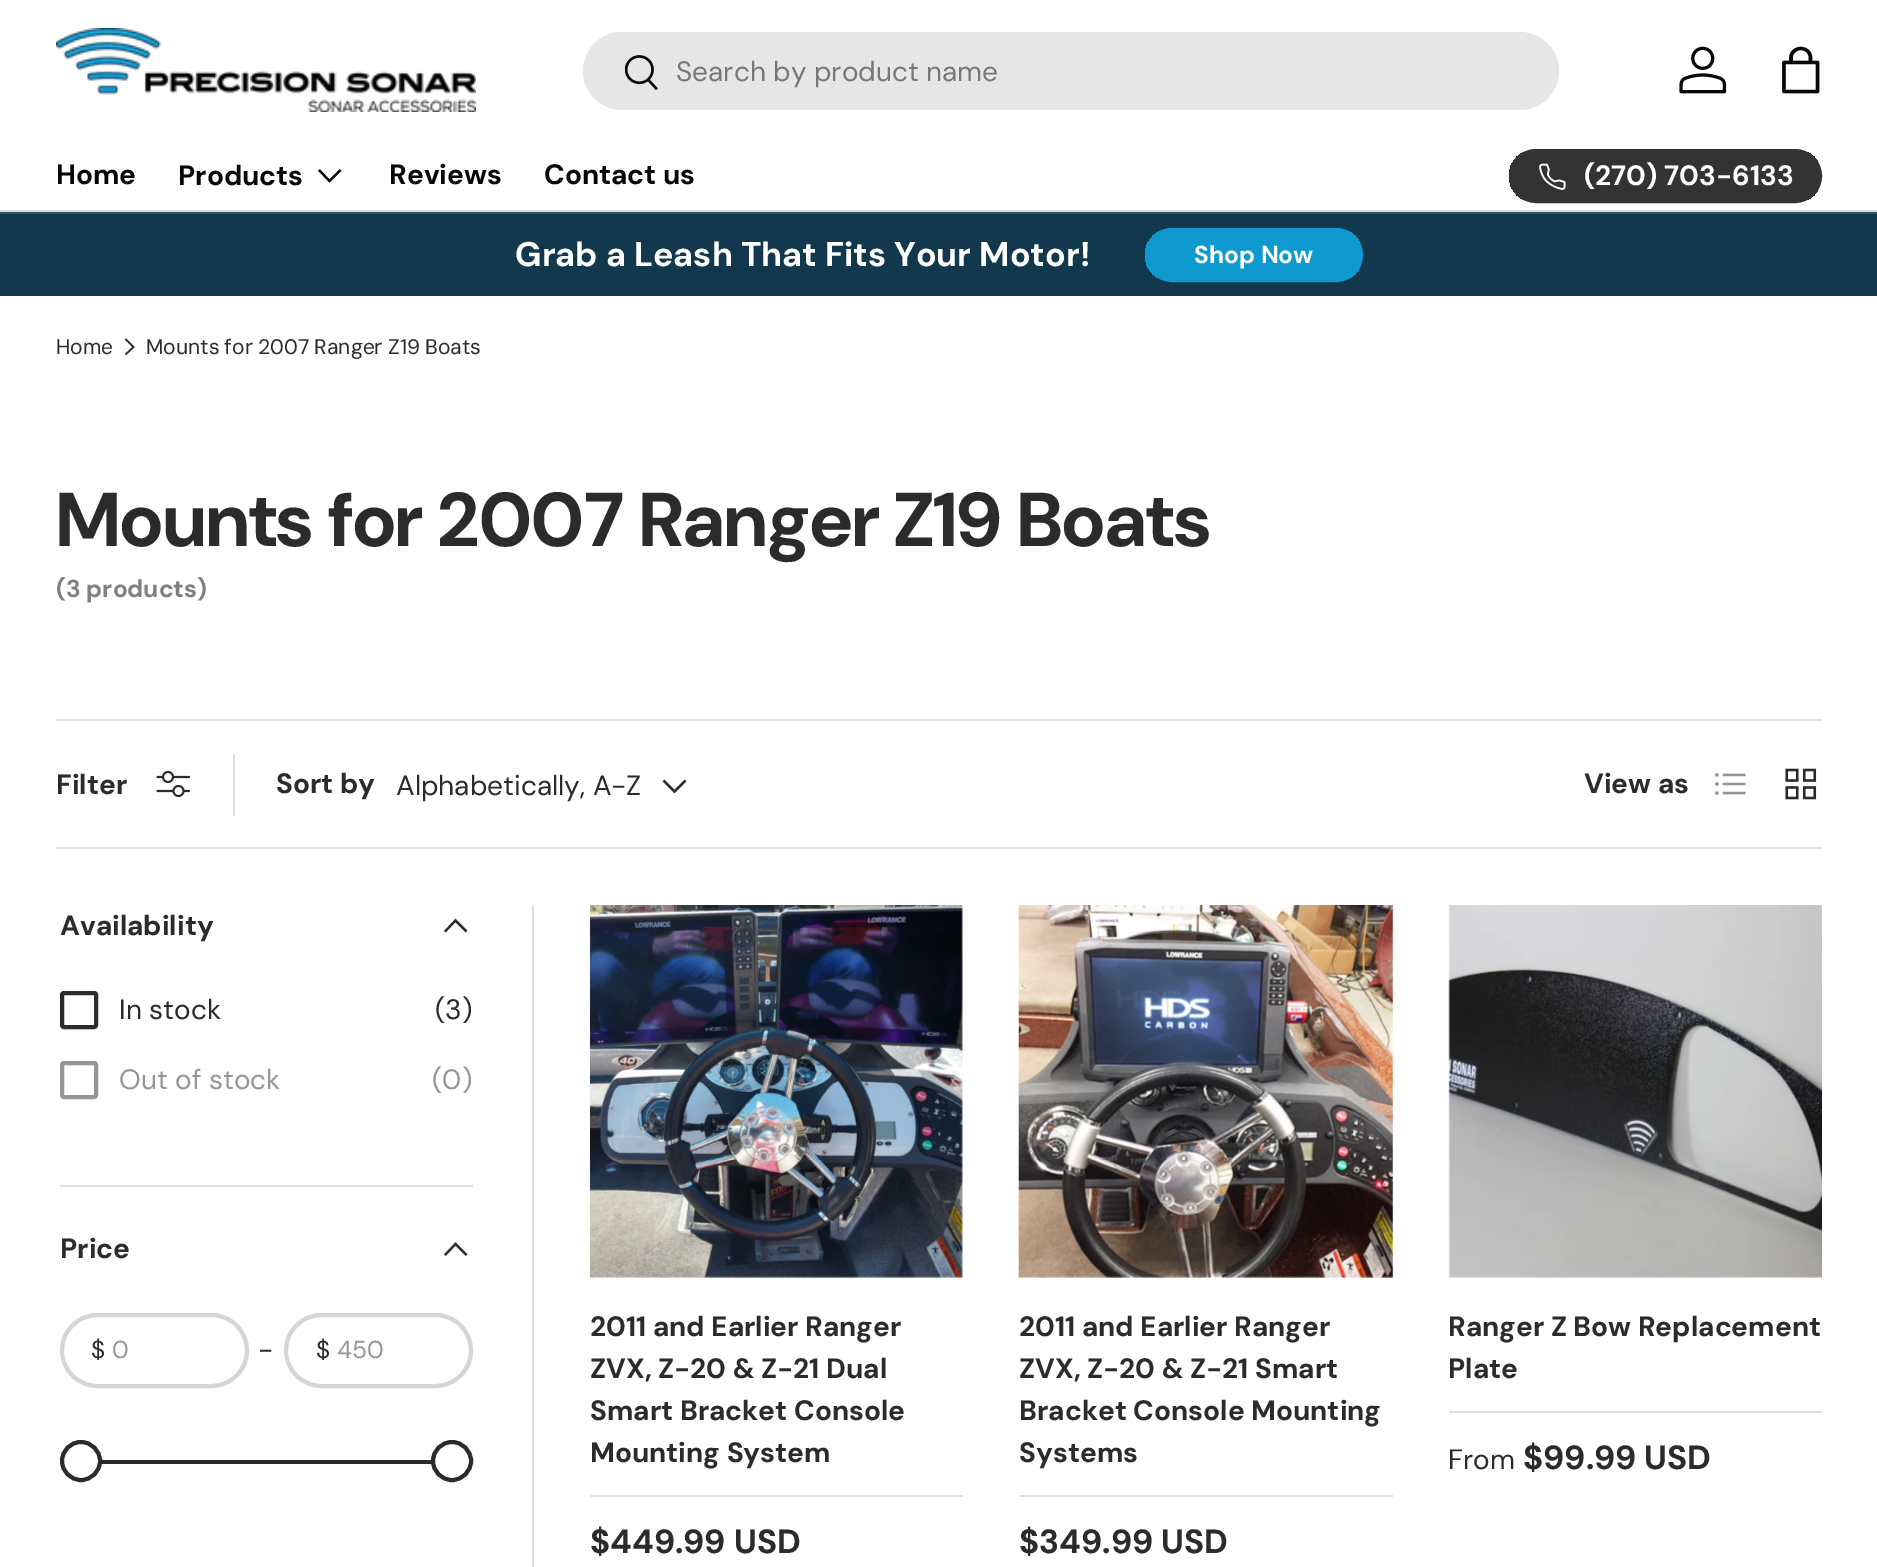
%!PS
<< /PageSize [1877 1567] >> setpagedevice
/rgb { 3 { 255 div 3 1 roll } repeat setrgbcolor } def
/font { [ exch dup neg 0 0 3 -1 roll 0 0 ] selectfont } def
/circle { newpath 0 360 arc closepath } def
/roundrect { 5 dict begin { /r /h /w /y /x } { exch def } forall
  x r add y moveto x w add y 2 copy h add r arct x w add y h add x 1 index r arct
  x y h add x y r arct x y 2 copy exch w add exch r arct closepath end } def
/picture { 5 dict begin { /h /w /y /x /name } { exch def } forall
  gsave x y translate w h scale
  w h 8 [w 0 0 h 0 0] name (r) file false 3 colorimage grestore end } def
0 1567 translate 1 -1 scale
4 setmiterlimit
255 255 255 rgb
0 0 1877 1567 rectfill
218 218 218 rgb
0 210 1877 2 rectfill
(img/1.rgb) 56 28 420 84 picture
230 230 230 rgb
583 32 976 78 39 roundrect fill
(img/2.rgb) 625 55 33 36 picture
(img/3.rgb) 1679 46 48 48 picture
(img/4.rgb) 1782 46 38 48 picture
7 7 7 rgb
2.2 setlinewidth
340.5 170 moveto 329.5 181 lineto 319 170 lineto stroke
gsave
1509 149 313 54 27 roundrect clip newpath
gsave 1509 152 moveto 1818 152 lineto 1818 200 lineto 1509 200 lineto closepath clip newpath
<< /ShadingType 2 /ColorSpace /DeviceRGB /Coords [921 67 1797 285] /Extend [true true] /Function << /FunctionType 3 /Domain [0 1] /Functions [<< /FunctionType 2 /Domain [0 1] /C0 [0.353 0.353 0.353] /C1 [0.353 0.353 0.353] /N 1 >> << /FunctionType 2 /Domain [0 1] /C0 [0.2 0.2 0.2] /C1 [0.2 0.2 0.2] /N 1 >>] /Bounds [0.6] /Encode [0 1 0 1] >> >> shfill grestore
grestore
51 51 51 rgb
4 setlinewidth
1511 151 309 50 25 roundrect stroke
(img/5.rgb) 1539 163 27 27 picture
17 56 77 rgb
0 214 1877 82 rectfill
53 86 104 rgb
0 212 1877 2 rectfill
gsave
1145 228 218 54 27 roundrect clip newpath
gsave 1145 231 moveto 1360 231 lineto 1360 278 lineto 1145 278 lineto closepath clip newpath
<< /ShadingType 2 /ColorSpace /DeviceRGB /Coords [738 179 1347 331] /Extend [true true] /Function << /FunctionType 3 /Domain [0 1] /Functions [<< /FunctionType 2 /Domain [0 1] /C0 [0.247 0.678 0.851] /C1 [0.247 0.678 0.851] /N 1 >> << /FunctionType 2 /Domain [0 1] /C0 [0.055 0.6 0.812] /C1 [0.055 0.6 0.812] /N 1 >>] /Bounds [0.6] /Encode [0 1 0 1] >> >> shfill grestore
grestore
14 153 207 rgb
1147 230 214 50 25 roundrect stroke
42 43 42 rgb
1.6 setlinewidth
125.5 339 moveto 133.5 347 lineto 125.5 354.5 lineto stroke
223 223 223 rgb
56 719 1766 2 rectfill
56 847 1766 2 rectfill
(img/6.rgb) 156 770 35 28 picture
233 754 2 62 rectfill
42 43 42 rgb
2.2 setlinewidth
685.5 780.5 moveto 674.5 791.5 lineto 663.5 780.5 lineto stroke
(img/7.rgb) 1715 773 31 22 picture
(img/8.rgb) 1785 768 32 32 picture
223 223 223 rgb
532 905 2 662 rectfill
60 1185 413 2 rectfill
42 43 42 rgb
466.5 931.5 moveto 455.5 920.5 lineto 445 931.5 lineto stroke
4 setlinewidth
62 993 34 34 2 roundrect stroke
149 149 149 rgb
62 1063 34 34 2 roundrect stroke
42 43 42 rgb
2.2 setlinewidth
466.5 1255 moveto 455.5 1244 lineto 445 1255 lineto stroke
212 213 212 rgb
4 setlinewidth
62 1315 185 71 35.5 roundrect stroke
286 1315 185 71 35.5 roundrect stroke
42 43 42 rgb
60 1460 413 4 rectfill
255 255 255 rgb
81 1461 19 circle gsave fill grestore
42 43 42 rgb
stroke
255 255 255 rgb
452 1461 19 circle gsave fill grestore
42 43 42 rgb
stroke
(img/9.rgb) 590 905 373 373 picture
223 223 223 rgb
590 1495 373 2 rectfill
(img/10.rgb) 1018 905 376 373 picture
1019 1495 374 2 rectfill
(img/11.rgb) 1448 905 374 373 picture
1449 1411 373 2 rectfill
/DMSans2-Regular 28 font
119 119 119 rgb
676 81 moveto (Search by product name) show
/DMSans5-Bold 28 font
7 7 7 rgb
[
  [(Home) 56 184]
  [(Products) 178 185]
  [(Reviews) 389 184]
  [(Contact us) 544 184]
] { aload pop moveto show } forall
255 255 255 rgb
1584 185 moveto (\(270\) 703-6133) show
/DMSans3-Bold 34.2 font
515 266 moveto (Grab a Leash That Fits Your Motor!) show
/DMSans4-Bold 24.5 font
1194 263 moveto (Shop Now) show
/DMSans-Regular 21 font
42 43 42 rgb
56 354 moveto (Home) show
146 354 moveto -0.5 0 32 (Mounts for 2007 Ranger Z19 Boats) widthshow
/DMSans-Bold 76 font
56 546 moveto (Mounts for 2007 Ranger Z19 Boats) show
/DMSans2-Bold 24.5 font
127 128 127 rgb
56 597 moveto (\(3 products\)) show
/DMSans5-Bold 28 font
42 43 42 rgb
56 794 moveto (Filter) show
276 793 moveto (Sort by) show
/DMSans2-Regular 28 font
396 795 moveto (Alphabetically, A-Z) show
/DMSans5-Bold 28 font
1584 793 moveto (View as) show
60 935 moveto (Availability) show
/DMSans2-Regular 28 font
119 1019 moveto (In stock) show
435 1019 moveto (\(3\)) show
149 149 149 rgb
119 1089 moveto (Out of stock) show
432 1089 moveto (\(0\)) show
/DMSans5-Bold 28 font
42 43 42 rgb
60 1258 moveto (Price) show
/DMSans3-Regular 24.5 font
91 1358 moveto ($) show
149 149 149 rgb
112 1358 moveto (0) show
/DMSans2-Regular 28 font
42 43 42 rgb
258 1359 moveto (-) show
/DMSans3-Regular 24.5 font
316 1358 moveto ($) show
gsave
338 1334 103 31 rectclip
149 149 149 rgb
337 1358 moveto (450) show
grestore
/DMSans5-Bold 28 font
[
  [(2011 and Earlier Ranger) 590 1336]
  [(ZVX, Z-20 & Z-21 Dual) 590 1378]
  [(Smart Bracket Console) 590 1420]
  [(Mounting System) 590 1462]
] { aload pop moveto show } forall
/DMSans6-Bold 33.5 font
590 1553 moveto ($449.99 USD) show
/DMSans5-Bold 28 font
[
  [(2011 and Earlier Ranger) 1019 1336]
  [(ZVX, Z-20 & Z-21 Smart) 1019 1378]
  [(Bracket Console Mounting) 1019 1420]
  [(Systems) 1019 1462]
] { aload pop moveto show } forall
/DMSans6-Bold 33.5 font
1019 1553 moveto ($349.99 USD) show
/DMSans5-Bold 28 font
1448 1336 moveto (Ranger Z Bow Replacement) show
1448 1378 moveto (Plate) show
/DMSans2-Regular 28 font
1448 1469 moveto (From) show
/DMSans6-Bold 33.5 font
1523 1469 moveto ($99.99 USD) show
showpage
